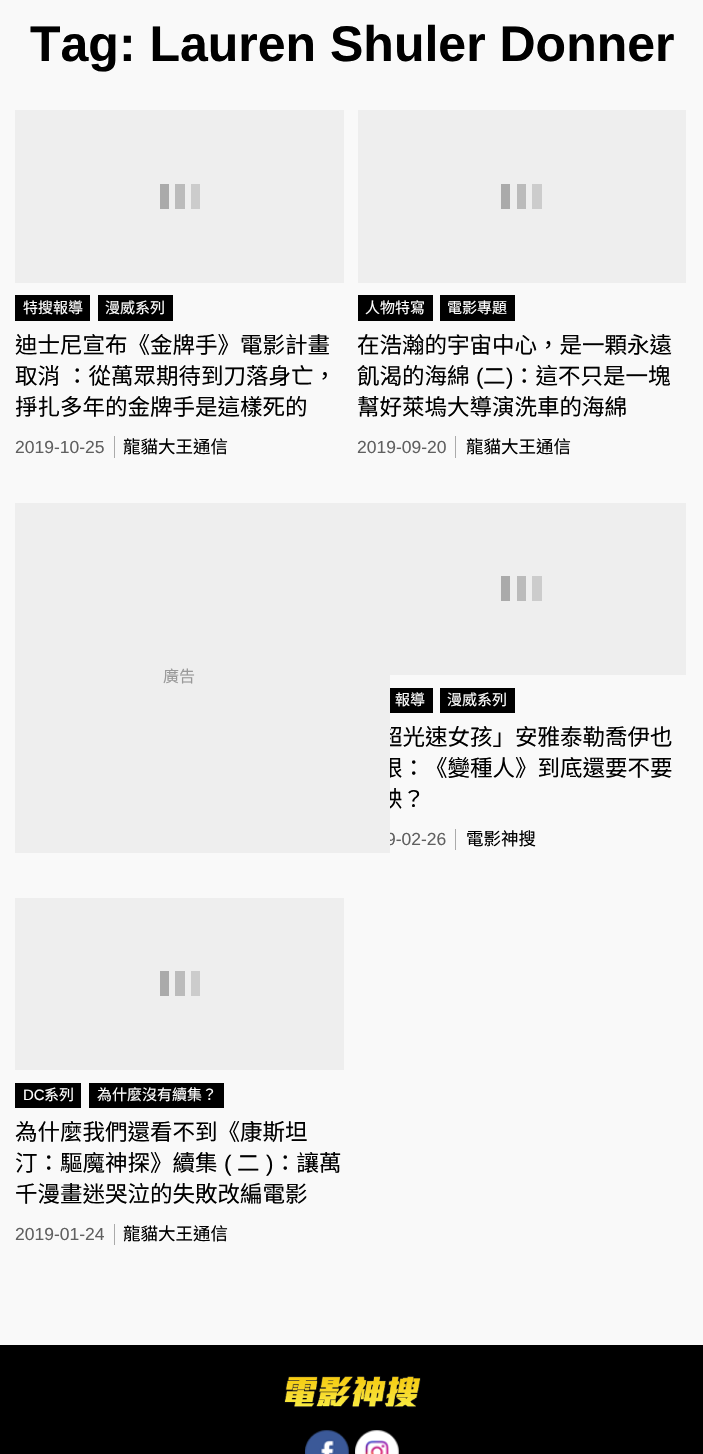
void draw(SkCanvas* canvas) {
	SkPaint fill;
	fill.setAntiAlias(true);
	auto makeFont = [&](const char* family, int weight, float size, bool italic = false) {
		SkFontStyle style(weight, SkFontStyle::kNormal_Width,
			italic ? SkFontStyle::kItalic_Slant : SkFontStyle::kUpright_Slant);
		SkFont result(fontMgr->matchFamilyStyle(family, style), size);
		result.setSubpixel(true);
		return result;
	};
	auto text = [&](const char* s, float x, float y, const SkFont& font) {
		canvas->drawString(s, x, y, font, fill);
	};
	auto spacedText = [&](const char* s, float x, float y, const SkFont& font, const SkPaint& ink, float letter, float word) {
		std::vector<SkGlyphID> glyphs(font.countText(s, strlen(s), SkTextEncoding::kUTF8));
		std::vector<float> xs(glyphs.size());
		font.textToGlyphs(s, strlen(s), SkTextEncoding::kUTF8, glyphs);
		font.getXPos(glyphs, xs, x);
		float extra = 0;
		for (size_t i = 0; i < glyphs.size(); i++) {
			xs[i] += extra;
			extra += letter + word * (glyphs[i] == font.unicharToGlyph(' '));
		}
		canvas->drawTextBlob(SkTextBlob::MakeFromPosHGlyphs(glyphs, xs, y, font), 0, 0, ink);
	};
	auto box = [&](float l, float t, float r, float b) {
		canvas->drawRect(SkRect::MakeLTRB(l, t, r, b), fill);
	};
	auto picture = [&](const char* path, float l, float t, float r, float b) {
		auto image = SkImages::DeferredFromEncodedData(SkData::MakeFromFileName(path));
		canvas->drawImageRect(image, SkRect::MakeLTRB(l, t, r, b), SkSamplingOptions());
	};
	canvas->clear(0xFFF9F9F9);
	fill.setColor(0xFFEEEEEE);
	box(15, 110, 344, 283);
	fill.setColor(0xFFAAAAAA);
	box(160, 184, 169, 209);
	fill.setColor(0xFFBBBBBB);
	box(175, 184, 185, 209);
	fill.setColor(0xFFCCCCCC);
	box(191, 184, 200, 209);
	fill.setColor(0xFF000000);
	box(15, 295, 90, 321);
	box(98, 295, 173, 321);
	fill.setColor(0xFFAAAAAA);
	box(114, 436, 115, 458);
	fill.setColor(0xFFEEEEEE);
	box(358, 110, 686, 283);
	fill.setColor(0xFFAAAAAA);
	box(501, 184, 510, 209);
	fill.setColor(0xFFBBBBBB);
	box(517, 184, 526, 209);
	fill.setColor(0xFFCCCCCC);
	box(532, 184, 542, 209);
	fill.setColor(0xFF000000);
	box(358, 295, 433, 321);
	box(440, 295, 515, 321);
	fill.setColor(0xFFAAAAAA);
	box(455, 436, 456, 458);
	fill.setColor(0xFFEEEEEE);
	box(390, 503, 686, 675);
	fill.setColor(0xFFAAAAAA);
	box(501, 576, 510, 601);
	fill.setColor(0xFFBBBBBB);
	box(517, 576, 526, 601);
	fill.setColor(0xFFCCCCCC);
	box(532, 576, 542, 601);
	fill.setColor(0xFF000000);
	box(390, 688, 433, 713);
	box(440, 688, 515, 713);
	fill.setColor(0xFFAAAAAA);
	box(455, 829, 456, 850);
	fill.setColor(0xFFEEEEEE);
	box(15, 898, 344, 1070);
	fill.setColor(0xFFAAAAAA);
	box(160, 971, 169, 996);
	fill.setColor(0xFFBBBBBB);
	box(175, 971, 185, 996);
	fill.setColor(0xFFCCCCCC);
	box(191, 971, 200, 996);
	fill.setColor(0xFF000000);
	box(15, 1083, 81, 1108);
	box(89, 1083, 224, 1108);
	fill.setColor(0xFFAAAAAA);
	box(114, 1224, 115, 1245);
	fill.setColor(0xFF000000);
	box(0, 1345, 703, 1454);
	picture("image0.png", 284, 1376, 421, 1408);
	picture("image1.png", 305, 1430, 349, 1454);
	picture("image2.png", 355, 1430, 399, 1454);
	auto font1 = makeFont("Liberation Sans", 700, 50);
	text("Tag: Lauren Shuler Donner", 30, 61, font1);
	auto font2 = makeFont("Noto Sans CJK TC", 400, 15);
	fill.setColor(0xFFFFFFFF);
	text("特搜報導", 23, 313, font2);
	text("漫威系列", 105, 313, font2);
	auto font3 = makeFont("Noto Sans CJK TC", 400, 22.5f);
	fill.setColor(0xFF000000);
	text("迪士尼宣布《金牌手》電影計畫", 15, 353, font3);
	spacedText("取消 ：從萬眾期待到刀落身亡，", 15, 384, font3, fill, 0, 1);
	text("掙扎多年的金牌手是這樣死的", 15, 415, font3);
	auto font4 = makeFont("Liberation Sans", 400, 17.5f);
	fill.setColor(0xFF606060);
	text("2019-10-25", 15, 453, font4);
	auto font5 = makeFont("Noto Sans CJK TC", 400, 17.5f);
	fill.setColor(0xFF000000);
	text("龍貓大王通信", 123, 453, font5);
	fill.setColor(0xFFFFFFFF);
	text("人物特寫", 365, 313, font2);
	text("電影專題", 447, 313, font2);
	fill.setColor(0xFF000000);
	text("在浩瀚的宇宙中心，是一顆永遠", 357, 353, font3);
	text("飢渴的海綿", 357, 384, font3);
	auto font6 = makeFont("Liberation Sans", 400, 22.5f);
	text("(", 476, 384, font6);
	text("二", 483, 384, font3);
	text(")", 506, 384, font6);
	text("：這不只是一塊", 513, 384, font3);
	text("幫好萊塢大導演洗車的海綿", 357, 415, font3);
	fill.setColor(0xFF606060);
	text("2019-09-20", 357, 453, font4);
	fill.setColor(0xFF000000);
	text("龍貓大王通信", 466, 453, font5);
	fill.setColor(0xFFFFFFFF);
	text("報導", 395, 705, font2);
	text("漫威系列", 447, 705, font2);
	fill.setColor(0xFF000000);
	text("超光速女孩」安雅泰勒喬伊也", 380, 745, font3);
	text("眼：《變種人》到底還要不要", 380, 776, font3);
	text("映？", 380, 807, font3);
	fill.setColor(0xFF606060);
	text("9-02-26", 386, 845, font4);
	fill.setColor(0xFFEEEEEE);
	box(15, 503, 390, 853);
	auto font7 = makeFont("Noto Sans CJK TC", 400, 16);
	fill.setColor(0xFF999999);
	text("廣告", 163, 682, font7);
	fill.setColor(0xFF000000);
	text("電影神搜", 466, 845, font5);
	auto font8 = makeFont("Liberation Sans", 400, 15);
	fill.setColor(0xFFFFFFFF);
	text("DC", 23, 1100, font8);
	text("系列", 44, 1100, font2);
	text("為什麼沒有續集？", 97, 1100, font2);
	fill.setColor(0xFF000000);
	text("為什麼我們還看不到《康斯坦", 15, 1140, font3);
	text("汀：驅魔神探》續集", 15, 1171, font3);
	text("(", 224, 1171, font6);
	text("二", 237, 1171, font3);
	text(")", 266, 1171, font6);
	text("：讓萬", 274, 1171, font3);
	text("千漫畫迷哭泣的失敗改編電影", 15, 1202, font3);
	fill.setColor(0xFF606060);
	text("2019-01-24", 15, 1240, font4);
	fill.setColor(0xFF000000);
	text("龍貓大王通信", 123, 1240, font5);
}
